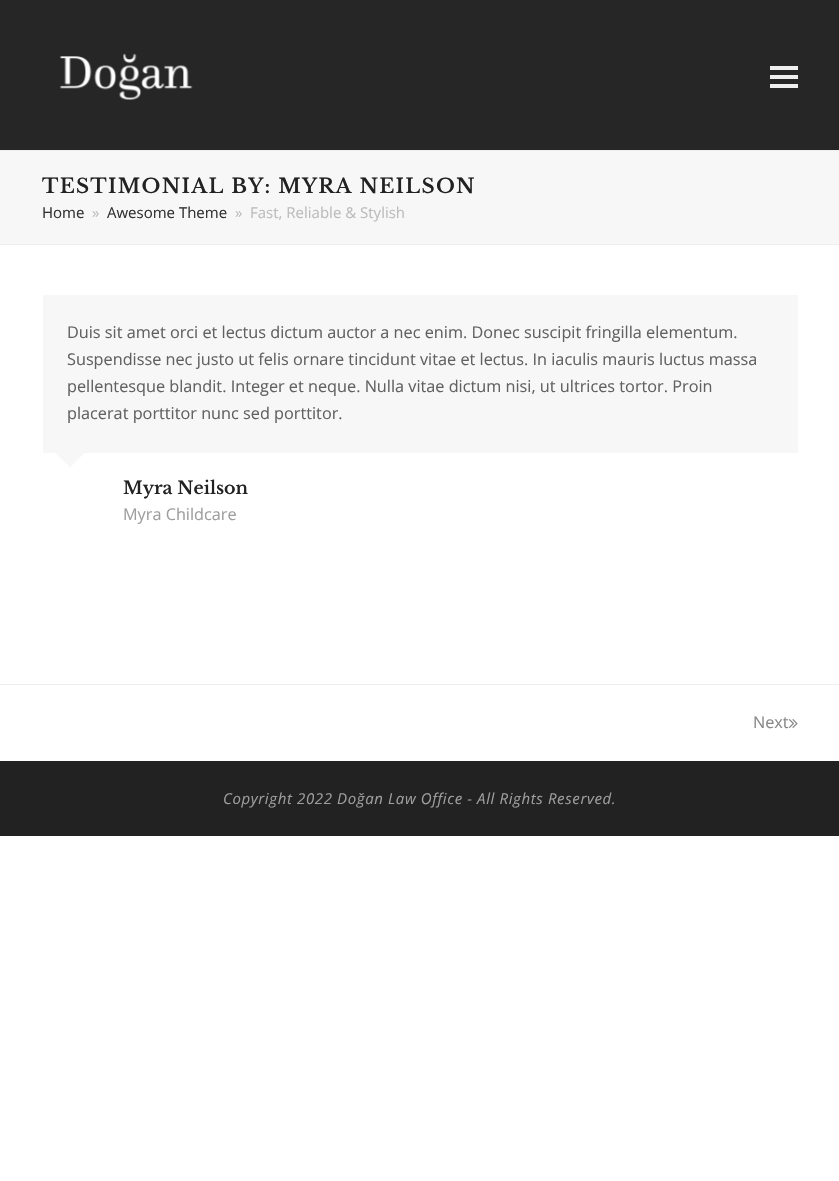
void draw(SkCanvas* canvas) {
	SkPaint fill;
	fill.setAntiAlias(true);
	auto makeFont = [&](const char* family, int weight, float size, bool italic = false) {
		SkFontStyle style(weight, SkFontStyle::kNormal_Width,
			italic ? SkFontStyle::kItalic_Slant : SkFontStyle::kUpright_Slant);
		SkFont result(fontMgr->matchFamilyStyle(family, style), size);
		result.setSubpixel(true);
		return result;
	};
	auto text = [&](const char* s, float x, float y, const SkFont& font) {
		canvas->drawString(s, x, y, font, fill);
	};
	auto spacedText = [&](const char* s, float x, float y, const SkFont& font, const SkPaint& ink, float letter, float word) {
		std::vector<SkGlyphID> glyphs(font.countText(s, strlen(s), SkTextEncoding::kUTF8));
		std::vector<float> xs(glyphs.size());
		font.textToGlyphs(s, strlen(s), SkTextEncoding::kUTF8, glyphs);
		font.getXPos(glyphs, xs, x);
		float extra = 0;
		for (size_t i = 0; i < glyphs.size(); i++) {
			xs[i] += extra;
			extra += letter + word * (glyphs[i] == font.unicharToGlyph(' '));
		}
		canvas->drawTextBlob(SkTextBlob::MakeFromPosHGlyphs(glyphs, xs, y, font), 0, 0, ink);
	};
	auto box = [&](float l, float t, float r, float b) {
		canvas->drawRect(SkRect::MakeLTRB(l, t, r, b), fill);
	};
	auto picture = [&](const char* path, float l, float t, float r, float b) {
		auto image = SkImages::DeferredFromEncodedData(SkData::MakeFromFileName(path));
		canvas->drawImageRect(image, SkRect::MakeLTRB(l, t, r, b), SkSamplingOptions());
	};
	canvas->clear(0xFFFFFFFF);
	fill.setColor(0xFF262626);
	box(0, 0, 839, 150);
	picture("image0.png", 60, 53, 193, 100);
	fill.setColor(0xFFEEEEEE);
	box(770, 75, 798, 79);
	box(770, 66, 798, 70);
	box(770, 84, 798, 88);
	fill.setColor(0xFFF7F7F7);
	box(0, 151, 839, 244);
	fill.setColor(0xFFEEEEEE);
	box(0, 150, 839, 151);
	box(0, 244, 839, 245);
	fill.setColor(0xFFF7F7F7);
	box(43, 295, 798, 453);
	canvas->drawPath(SkPathBuilder().moveTo(55, 452.5f).lineTo(85, 452.5f).lineTo(70, 467.5f).close().detach(), fill);
	fill.setColor(0xFFEEEEEE);
	box(0, 684, 839, 685);
	picture("image1.png", 789, 719, 798, 728);
	fill.setColor(0xFF222222);
	box(0, 761, 839, 836);
	auto font1 = makeFont("Libre Baskerville", 600, 20);
	spacedText("TESTIMONIAL BY: MYRA NEILSON", 42, 193, font1, fill, 1.25f, 0);
	auto font2 = makeFont("Open Sans", 400, 15);
	fill.setColor(0xFF333333);
	text("Home", 42, 218, font2);
	fill.setColor(0xFFBCBCBC);
	text("»", 92, 218, font2);
	fill.setColor(0xFF333333);
	text("Awesome Theme", 107, 218, font2);
	fill.setColor(0xFFBCBCBC);
	text("»", 235, 218, font2);
	text("Fast, Reliable & Stylish", 250, 218, font2);
	auto font3 = makeFont("Open Sans", 400, 16.25f);
	fill.setColor(0xFF616161);
	text("Duis sit amet orci et lectus dictum auctor a nec enim. Donec suscipit fringilla elementum.", 67, 338, font3);
	text("Suspendisse nec justo ut felis ornare tincidunt vitae et lectus. In iaculis mauris luctus massa", 67, 365, font3);
	text("pellentesque blandit. Integer et neque. Nulla vitae dictum nisi, ut ultrices tortor. Proin", 67, 392, font3);
	text("placerat porttitor nunc sed porttitor.", 67, 419, font3);
	auto font4 = makeFont("Libre Baskerville", 600, 17.5f);
	fill.setColor(0xFF222222);
	text("Myra Neilson", 123, 494, font4);
	fill.setColor(0xFF9E9E9E);
	text("Myra Childcare", 123, 520, font3);
	fill.setColor(0xFF888888);
	text("Next", 753, 728, font3);
	auto font5 = makeFont("Open Sans", 400, 15, true);
	fill.setColor(0xFF9E9E9E);
	spacedText("Copyright 2022 Doğan Law Office - All Rights Reserved.", 223, 804, font5, fill, 0.62f, 0);
}
